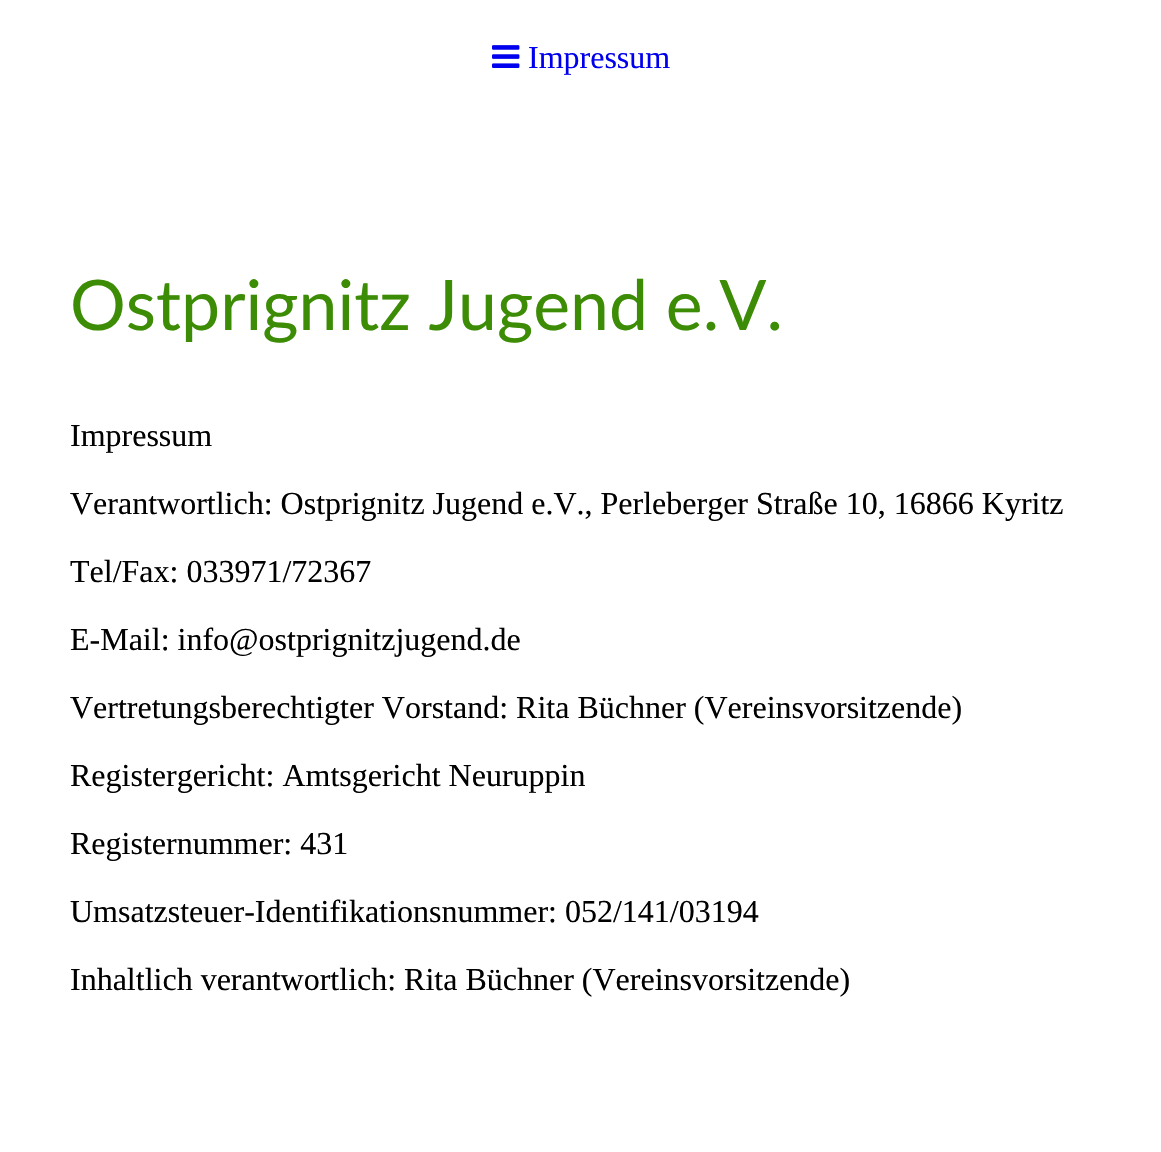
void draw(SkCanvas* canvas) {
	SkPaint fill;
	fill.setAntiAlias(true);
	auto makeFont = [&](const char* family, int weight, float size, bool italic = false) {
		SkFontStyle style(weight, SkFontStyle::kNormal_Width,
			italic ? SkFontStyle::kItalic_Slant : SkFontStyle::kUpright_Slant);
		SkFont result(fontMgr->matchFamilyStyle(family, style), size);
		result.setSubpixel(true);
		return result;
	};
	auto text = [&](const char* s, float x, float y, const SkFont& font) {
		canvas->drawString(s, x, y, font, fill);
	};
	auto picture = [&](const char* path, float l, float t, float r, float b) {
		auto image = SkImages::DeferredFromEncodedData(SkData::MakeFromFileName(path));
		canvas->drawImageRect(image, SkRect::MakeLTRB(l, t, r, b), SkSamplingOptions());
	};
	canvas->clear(0xFFFFFFFF);
	picture("image0.png", 492, 45, 520, 68);
	auto font1 = makeFont("Liberation Serif", 400, 32);
	fill.setColor(0xFF0000EE);
	text("Impressum", 528, 68, font1);
	auto font2 = makeFont("Lato", 400, 69.75f);
	fill.setColor(0xFF3C8C05);
	text("Ostprignitz Jugend e.V.", 70, 330, font2);
	fill.setColor(0xFF000000);
	text("Impressum", 70, 446, font1);
	text("Verantwortlich: Ostprignitz Jugend e.V., Perleberger Straße 10, 16866 Kyritz", 70, 514, font1);
	text("Tel/Fax: 033971/72367", 70, 582, font1);
	text("E-Mail: info@ostprignitzjugend.de", 70, 650, font1);
	text("Vertretungsberechtigter Vorstand: Rita Büchner (Vereinsvorsitzende)", 70, 718, font1);
	text("Registergericht: Amtsgericht Neuruppin", 70, 786, font1);
	text("Registernummer: 431", 70, 854, font1);
	text("Umsatzsteuer-Identifikationsnummer: 052/141/03194", 70, 922, font1);
	text("Inhaltlich verantwortlich: Rita Büchner (Vereinsvorsitzende)", 70, 990, font1);
}
